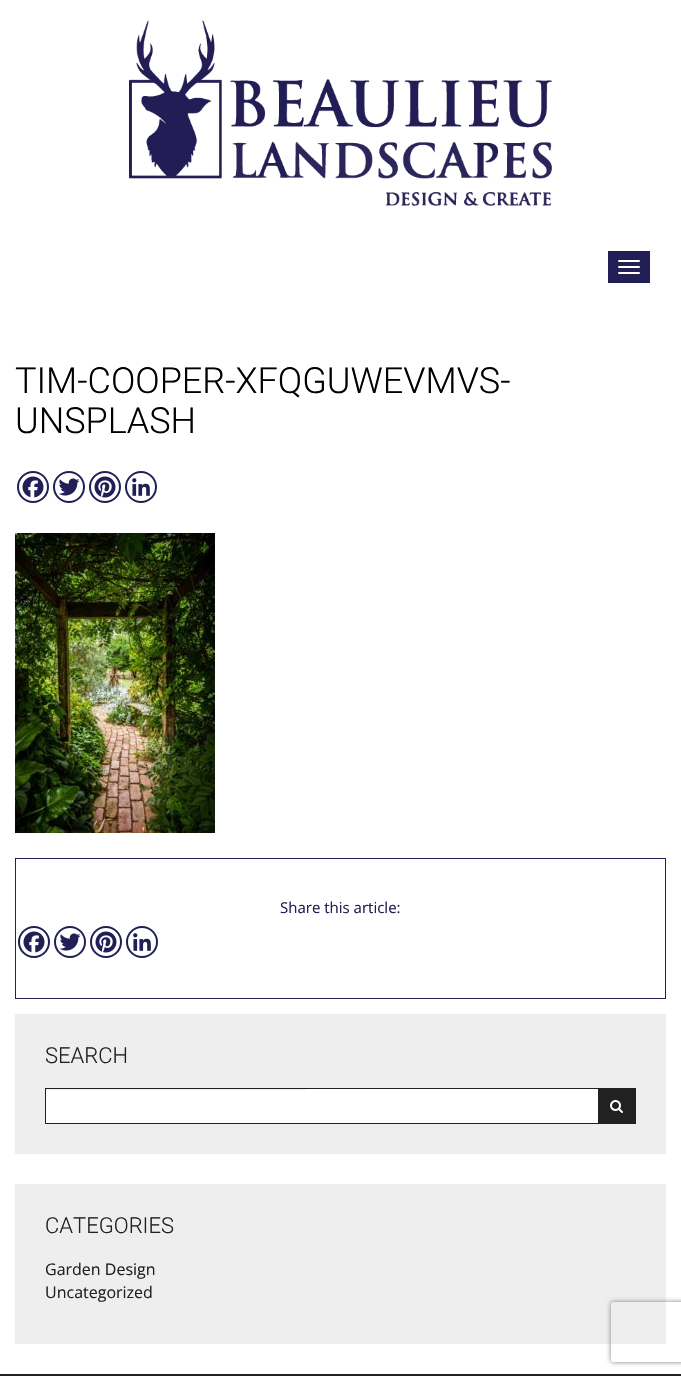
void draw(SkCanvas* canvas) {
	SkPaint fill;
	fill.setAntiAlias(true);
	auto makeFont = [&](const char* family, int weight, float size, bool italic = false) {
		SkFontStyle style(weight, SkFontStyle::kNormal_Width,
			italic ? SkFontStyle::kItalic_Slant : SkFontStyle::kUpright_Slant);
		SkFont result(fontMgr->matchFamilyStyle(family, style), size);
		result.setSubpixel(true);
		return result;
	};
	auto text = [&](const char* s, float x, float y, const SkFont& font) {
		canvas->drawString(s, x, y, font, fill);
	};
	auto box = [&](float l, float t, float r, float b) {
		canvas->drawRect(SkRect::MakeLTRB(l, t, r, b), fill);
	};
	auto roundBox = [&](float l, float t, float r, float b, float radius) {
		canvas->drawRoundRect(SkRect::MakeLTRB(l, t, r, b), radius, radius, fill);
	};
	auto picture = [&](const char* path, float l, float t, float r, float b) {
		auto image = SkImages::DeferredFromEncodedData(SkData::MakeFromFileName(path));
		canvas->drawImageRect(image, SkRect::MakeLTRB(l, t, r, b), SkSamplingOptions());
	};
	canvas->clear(0xFFFFFFFF);
	picture("image0.png", 129, 20, 552, 206);
	fill.setColor(0xFF211F55);
	box(608, 251, 650, 283);
	fill.setColor(0xFFFFFFFF);
	roundBox(618, 260, 640, 262, 1);
	roundBox(618, 266, 640, 268, 1);
	roundBox(618, 272, 640, 274, 1);
	fill.setStyle(SkPaint::kStroke_Style);
	fill.setStrokeWidth(2);
	fill.setColor(0xFF211F55);
	canvas->drawCircle(33, 487, 15, fill);
	picture("image1.png", 22, 476, 44, 498);
	canvas->drawCircle(69, 487, 15, fill);
	picture("image2.png", 58, 478, 80, 496);
	canvas->drawCircle(105, 487, 15, fill);
	picture("image3.png", 94, 476, 116, 498);
	canvas->drawCircle(141, 487, 15, fill);
	picture("image4.png", 132, 478, 150, 496);
	picture("image5.png", 15, 533, 215, 833);
	fill.setStrokeWidth(1);
	canvas->drawRect(SkRect::MakeLTRB(15.5f, 858.5f, 665.5f, 998.5f), fill);
	fill.setStrokeWidth(2);
	canvas->drawCircle(34, 942, 15, fill);
	picture("image1.png", 23, 931, 45, 953);
	canvas->drawCircle(70, 942, 15, fill);
	picture("image2.png", 59, 933, 81, 951);
	canvas->drawCircle(106, 942, 15, fill);
	picture("image3.png", 95, 931, 117, 953);
	canvas->drawCircle(142, 942, 15, fill);
	picture("image4.png", 133, 933, 151, 951);
	fill.setStyle(SkPaint::kFill_Style);
	fill.setColor(0xFFEEEEEE);
	box(15, 1014, 666, 1154);
	fill.setColor(0xFFFFFFFF);
	box(46, 1089, 598, 1123);
	fill.setStyle(SkPaint::kStroke_Style);
	fill.setStrokeWidth(1);
	fill.setColor(0xFF212121);
	canvas->drawRect(SkRect::MakeLTRB(45.5f, 1088.5f, 635.5f, 1123.5f), fill);
	fill.setStyle(SkPaint::kFill_Style);
	fill.setColor(0xFFECECEC);
	box(46, 1089, 306, 1090);
	fill.setColor(0xFF212121);
	box(598, 1089, 635, 1123);
	picture("image6.png", 610, 1100, 623, 1113);
	fill.setColor(0xFFEEEEEE);
	box(15, 1184, 666, 1344);
	canvas->save();
	canvas->clipPath(SkPathBuilder(SkPathFillType::kEvenOdd).moveTo(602, 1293).lineTo(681, 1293).lineTo(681, 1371).lineTo(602, 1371).close().moveTo(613, 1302).lineTo(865, 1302).cubicTo(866, 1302, 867, 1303, 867, 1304).lineTo(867, 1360).cubicTo(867, 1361, 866, 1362, 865, 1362).lineTo(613, 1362).cubicTo(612, 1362, 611, 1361, 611, 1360).lineTo(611, 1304).cubicTo(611, 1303, 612, 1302, 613, 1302).close().detach(), true);
	fill.setColor(0xFF808080);
	fill.setMaskFilter(SkMaskFilter::MakeBlur(kNormal_SkBlurStyle, 2.5f));
	canvas->drawRoundRect(SkRect::MakeLTRB(611, 1302, 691, 1362), 2, 2, fill);
	fill.setMaskFilter(nullptr);
	canvas->restore();
	fill.setColor(0xFF212121);
	box(0, 1374, 681, 1376);
	auto font1 = makeFont("Roboto", 300, 36);
	fill.setColor(0xFF000000);
	text("TIM-COOPER-XFQGUWEVMVS-", 15, 393, font1);
	text("UNSPLASH", 15, 433, font1);
	auto font2 = makeFont("Open Sans", 400, 15);
	fill.setColor(0xFF211F55);
	text("Share this article:", 280, 913, font2);
	auto font3 = makeFont("Roboto", 300, 22);
	fill.setColor(0xFF212121);
	text("SEARCH", 45, 1063, font3);
	text("CATEGORIES", 45, 1233, font3);
	auto font4 = makeFont("Open Sans", 400, 16);
	text("Garden Design", 45, 1275, font4);
	text("Uncategorized", 45, 1298, font4);
}
